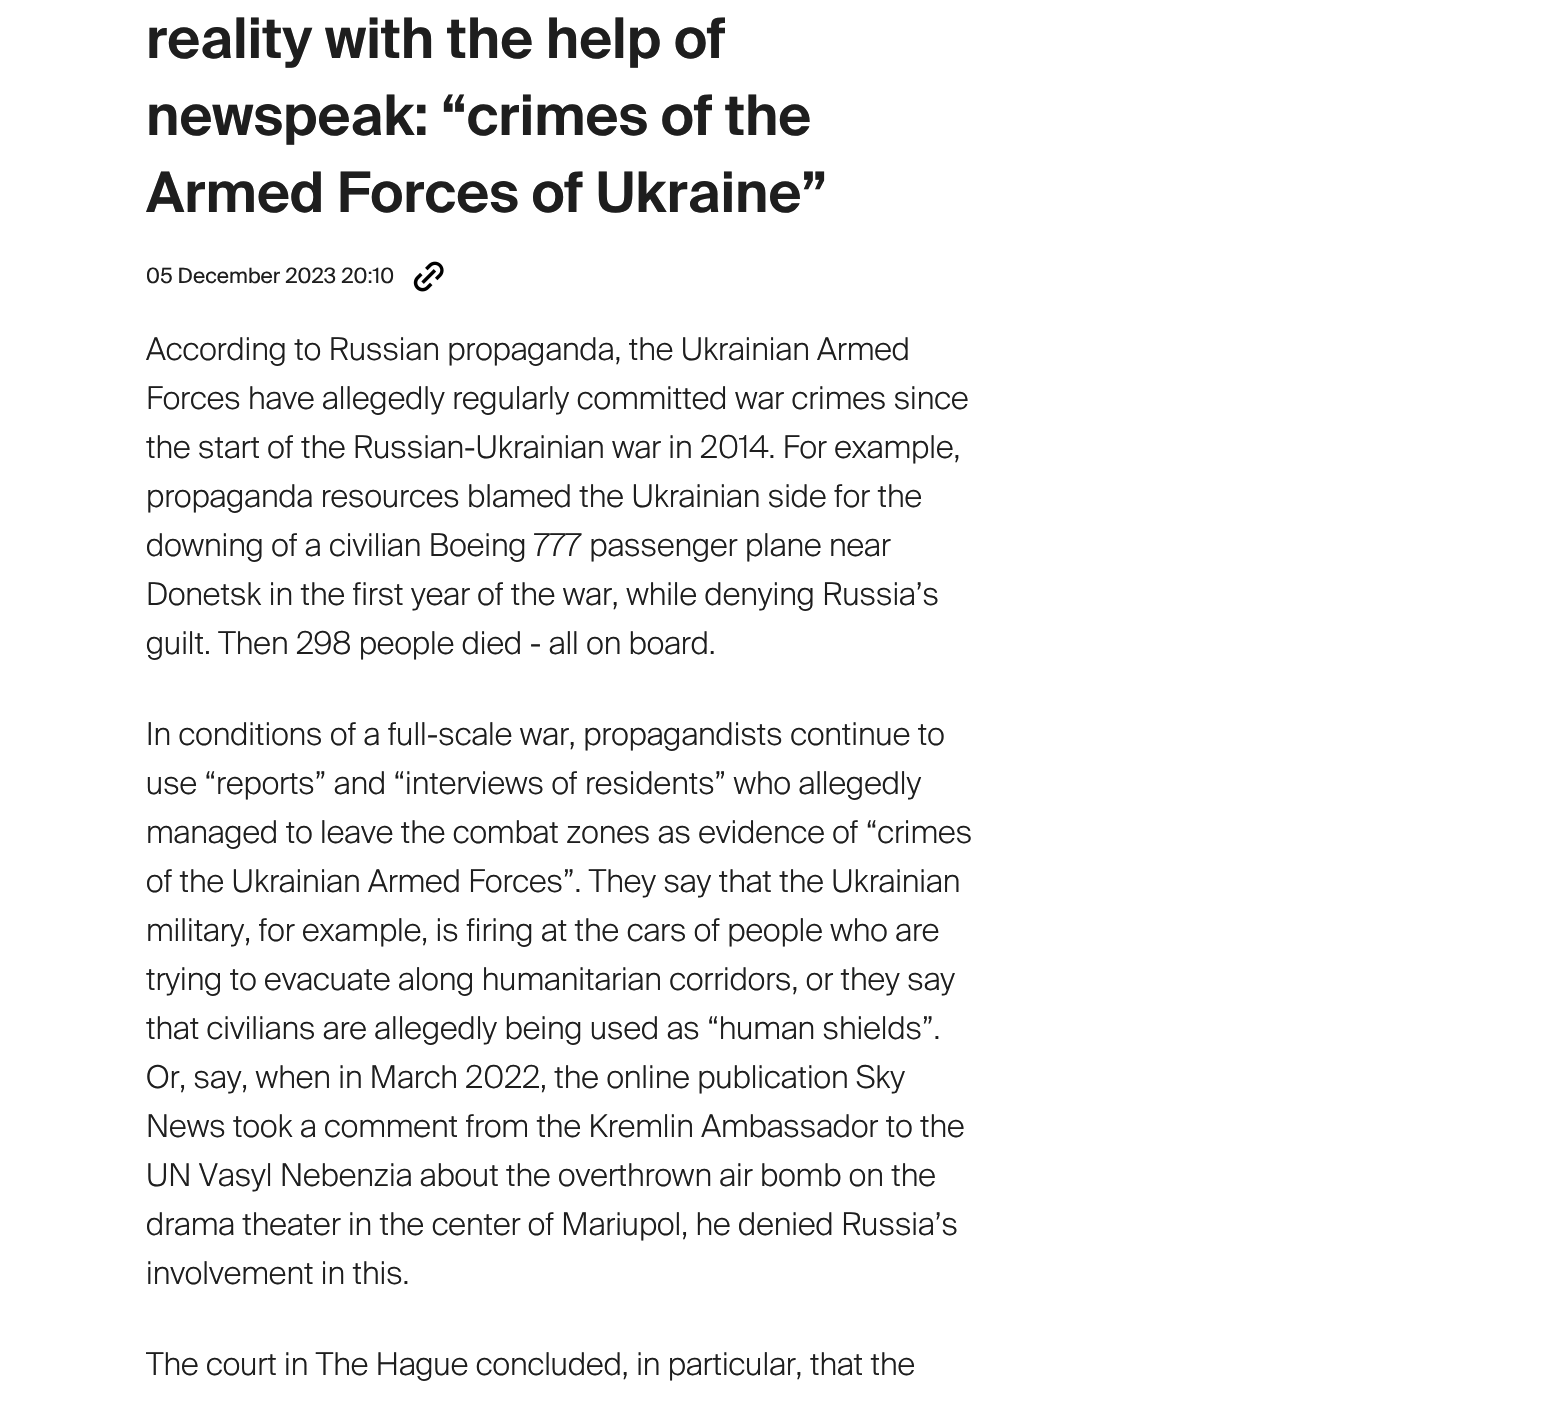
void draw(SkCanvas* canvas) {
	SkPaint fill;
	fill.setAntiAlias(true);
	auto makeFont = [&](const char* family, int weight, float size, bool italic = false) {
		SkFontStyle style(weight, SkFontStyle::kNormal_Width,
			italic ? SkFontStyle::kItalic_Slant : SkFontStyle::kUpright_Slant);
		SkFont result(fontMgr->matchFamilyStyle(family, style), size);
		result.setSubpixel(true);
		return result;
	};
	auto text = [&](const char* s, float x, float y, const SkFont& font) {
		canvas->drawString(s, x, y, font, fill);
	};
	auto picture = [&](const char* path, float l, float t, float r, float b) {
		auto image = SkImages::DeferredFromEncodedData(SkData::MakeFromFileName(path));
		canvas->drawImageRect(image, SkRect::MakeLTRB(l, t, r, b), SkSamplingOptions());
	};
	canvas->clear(0xFFFFFFFF);
	picture("image0.png", 413, 261, 444, 292);
	auto font1 = makeFont("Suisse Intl", 600, 56);
	fill.setColor(0xFF1E1E1E);
	text("reality with the help of", 146, 58, font1);
	text("newspeak: “crimes of the", 146, 135, font1);
	text("Armed Forces of Ukraine”", 146, 212, font1);
	auto font2 = makeFont("Suisse Intl", 400, 21);
	text("05 December 2023 20:10", 146, 283, font2);
	auto font3 = makeFont("Suisse Intl", 300, 31.5f);
	text("According to Russian propaganda, the Ukrainian Armed", 146, 360, font3);
	text("Forces have allegedly regularly committed war crimes since", 146, 409, font3);
	text("the start of the Russian-Ukrainian war in 2014. For example,", 146, 458, font3);
	text("propaganda resources blamed the Ukrainian side for the", 146, 507, font3);
	text("downing of a civilian Boeing 777 passenger plane near", 146, 556, font3);
	text("Donetsk in the first year of the war, while denying Russia’s", 146, 605, font3);
	text("guilt. Then 298 people died - all on board.", 146, 654, font3);
	text("In conditions of a full-scale war, propagandists continue to", 146, 745, font3);
	text("use “reports” and “interviews of residents” who allegedly", 146, 794, font3);
	text("managed to leave the combat zones as evidence of “crimes", 146, 843, font3);
	text("of the Ukrainian Armed Forces”. They say that the Ukrainian", 146, 892, font3);
	text("military, for example, is firing at the cars of people who are", 146, 941, font3);
	text("trying to evacuate along humanitarian corridors, or they say", 146, 990, font3);
	text("that civilians are allegedly being used as “human shields”.", 146, 1039, font3);
	text("Or, say, when in March 2022, the online publication Sky", 146, 1088, font3);
	text("News took a comment from the Kremlin Ambassador to the", 146, 1137, font3);
	text("UN Vasyl Nebenzia about the overthrown air bomb on the", 146, 1186, font3);
	text("drama theater in the center of Mariupol, he denied Russia’s", 146, 1235, font3);
	text("involvement in this.", 146, 1284, font3);
	text("The court in The Hague concluded, in particular, that the", 146, 1375, font3);
}
